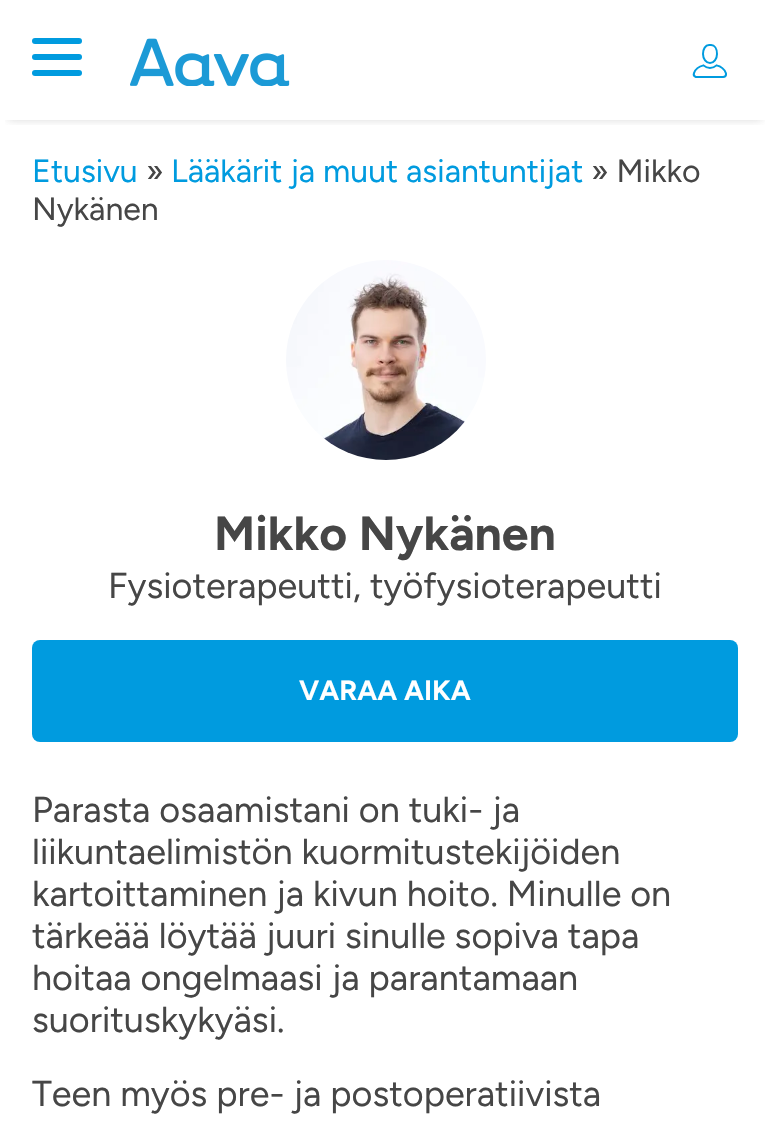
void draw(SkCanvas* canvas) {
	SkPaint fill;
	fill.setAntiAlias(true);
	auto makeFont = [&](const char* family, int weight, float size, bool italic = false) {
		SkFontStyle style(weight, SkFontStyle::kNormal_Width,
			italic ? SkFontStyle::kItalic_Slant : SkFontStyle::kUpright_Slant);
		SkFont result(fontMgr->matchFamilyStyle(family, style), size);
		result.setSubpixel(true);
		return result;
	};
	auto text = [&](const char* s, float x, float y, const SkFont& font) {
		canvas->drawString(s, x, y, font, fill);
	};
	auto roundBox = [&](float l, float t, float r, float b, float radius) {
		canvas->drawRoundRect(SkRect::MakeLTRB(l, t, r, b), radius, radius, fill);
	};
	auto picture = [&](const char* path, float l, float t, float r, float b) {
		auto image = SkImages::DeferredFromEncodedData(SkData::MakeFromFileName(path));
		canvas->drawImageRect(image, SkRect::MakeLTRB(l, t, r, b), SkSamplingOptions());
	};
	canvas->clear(0xFFFFFFFF);
	canvas->save();
	canvas->clipRect(SkRect::MakeLTRB(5, 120, 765, 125));
	fill.setColor(0x33464646);
	fill.setMaskFilter(SkMaskFilter::MakeBlur(kNormal_SkBlurStyle, 4));
	canvas->drawRect(SkRect::MakeLTRB(8, 16, 762, 120), fill);
	fill.setMaskFilter(nullptr);
	canvas->restore();
	fill.setColor(0xFF009BDF);
	roundBox(32, 38, 82, 44, 3);
	roundBox(32, 54, 82, 60, 3);
	roundBox(32, 70, 82, 76, 3);
	picture("image0.png", 130, 38, 290, 86);
	picture("image1.png", 692, 44, 727, 78);
	picture("image2.png", 286, 260, 486, 460);
	roundBox(32, 640, 738, 742, 8);
	auto font1 = makeFont("Figtree", 400, 32);
	text("Etusivu", 32, 182, font1);
	fill.setColor(0xFF464646);
	text("»", 146, 182, font1);
	fill.setColor(0xFF009BDF);
	text("Lääkärit ja muut asiantuntijat", 171, 182, font1);
	fill.setColor(0xFF464646);
	text("» Mikko", 591, 182, font1);
	text("Nykänen", 32, 220, font1);
	auto font2 = makeFont("Figtree", 700, 48);
	text("Mikko Nykänen", 214, 550, font2);
	auto font3 = makeFont("Figtree", 400, 36);
	text("Fysioterapeutti, työfysioterapeutti", 108, 598, font3);
	auto font4 = makeFont("Figtree", 700, 28);
	fill.setColor(0xFFFFFFFF);
	text("VARAA AIKA", 299, 700, font4);
	fill.setColor(0xFF464646);
	text("Parasta osaamistani on tuki- ja", 32, 822, font3);
	text("liikuntaelimistön kuormitustekijöiden", 32, 864, font3);
	text("kartoittaminen ja kivun hoito. Minulle on", 32, 906, font3);
	text("tärkeää löytää juuri sinulle sopiva tapa", 32, 948, font3);
	text("hoitaa ongelmaasi ja parantamaan", 32, 990, font3);
	text("suorituskykyäsi.", 32, 1032, font3);
	text("Teen myös pre- ja postoperatiivista", 32, 1106, font3);
}
